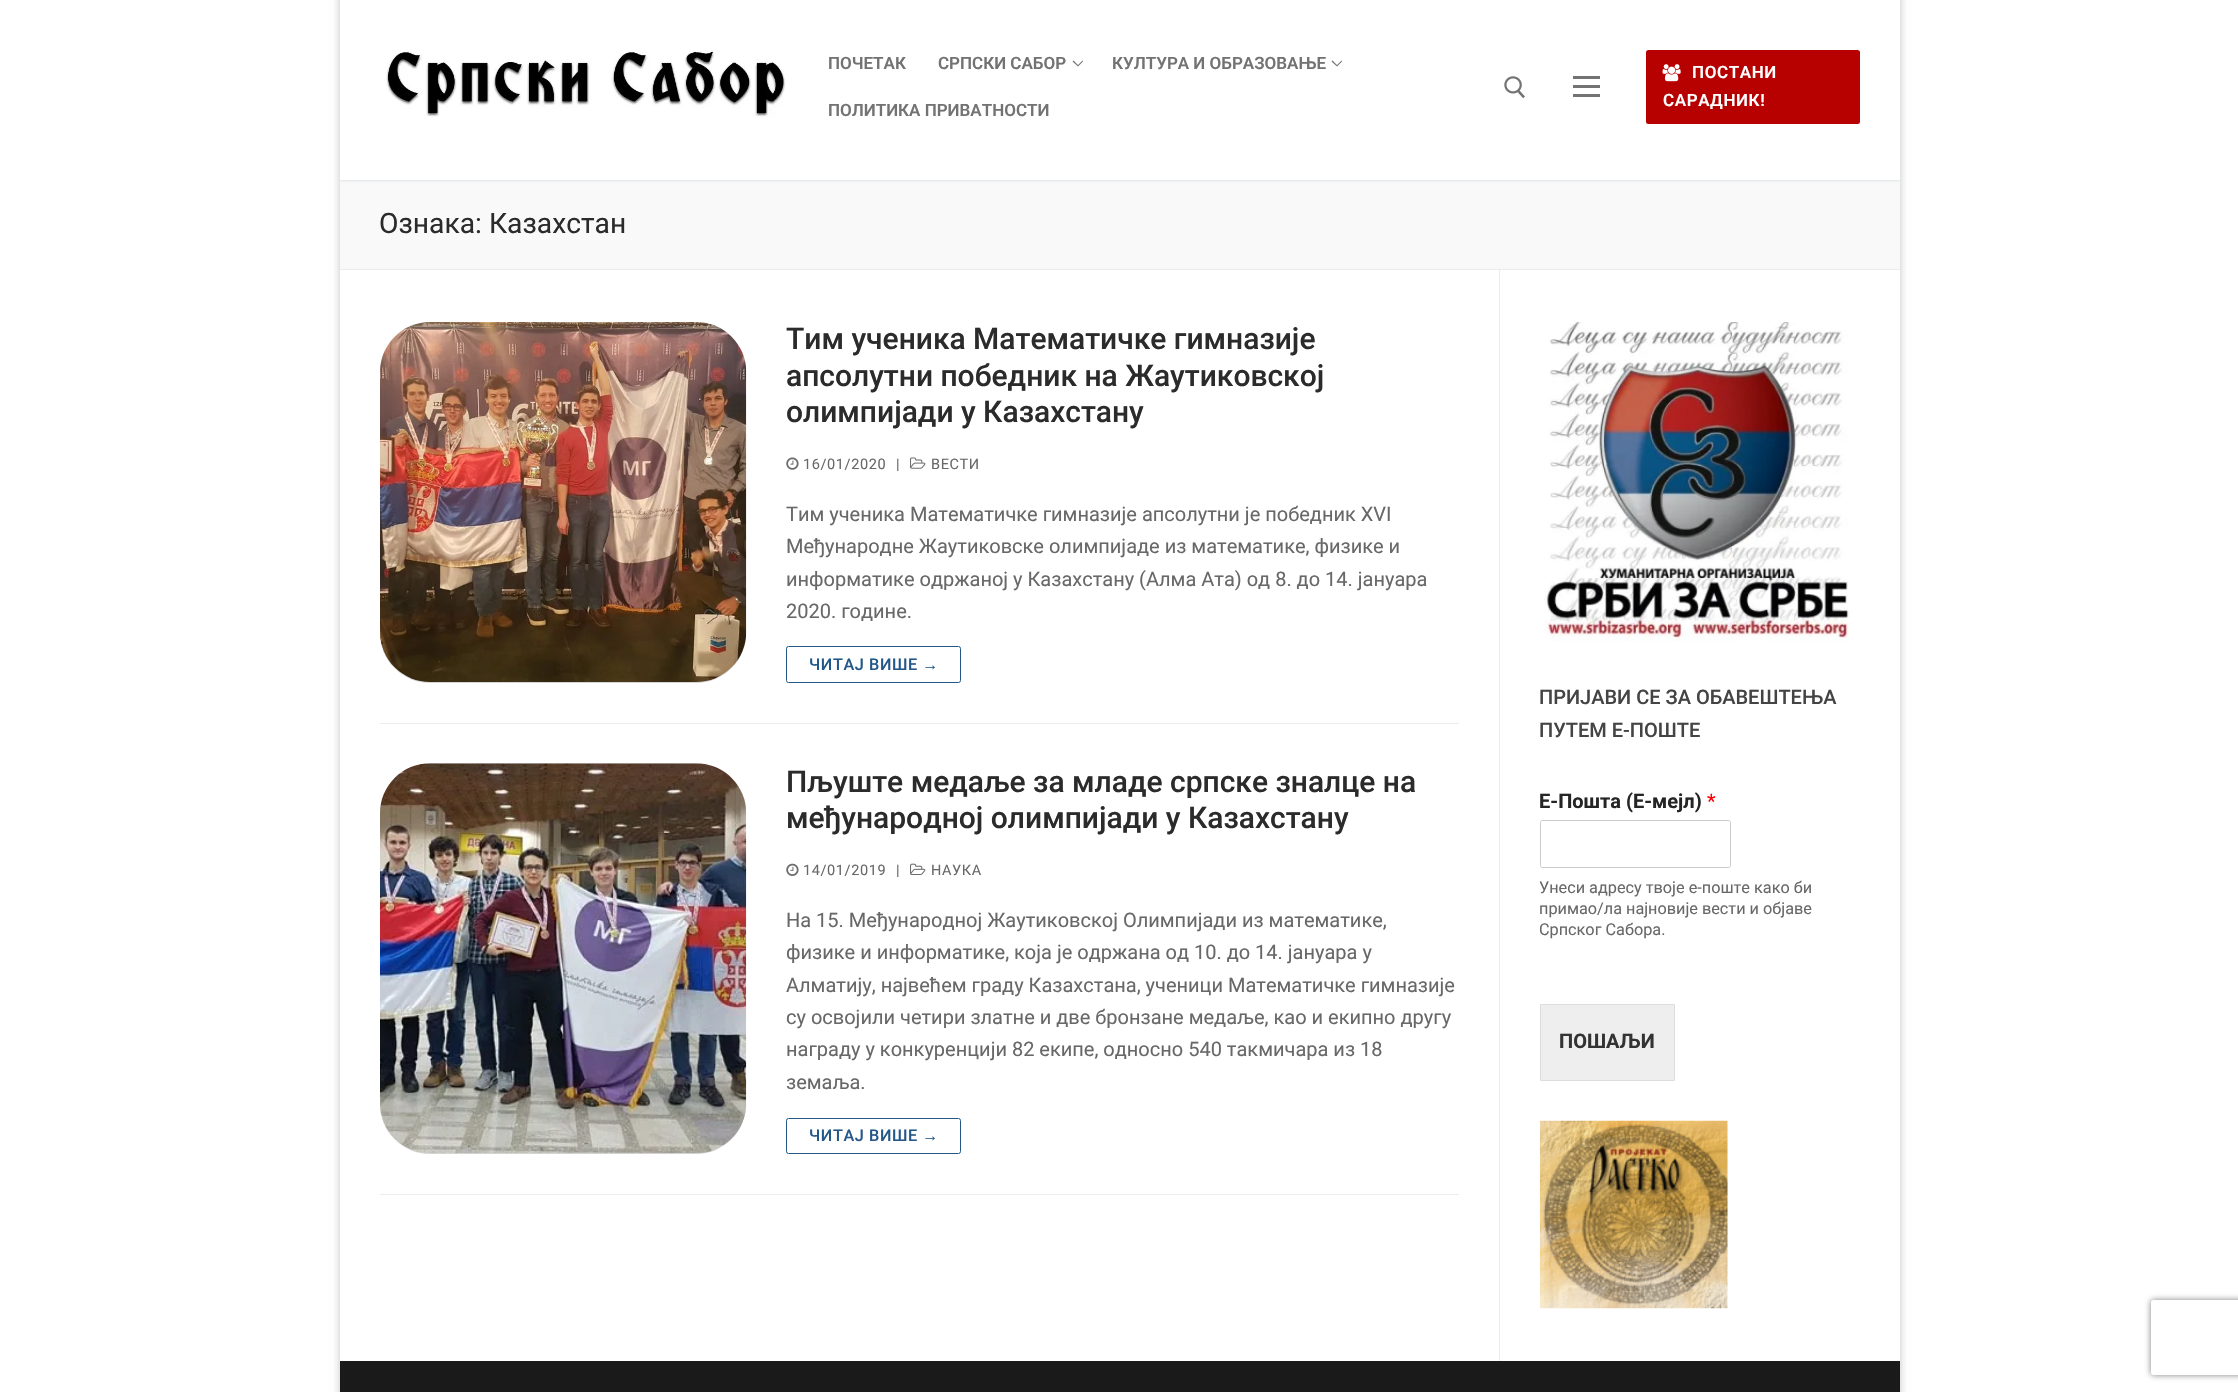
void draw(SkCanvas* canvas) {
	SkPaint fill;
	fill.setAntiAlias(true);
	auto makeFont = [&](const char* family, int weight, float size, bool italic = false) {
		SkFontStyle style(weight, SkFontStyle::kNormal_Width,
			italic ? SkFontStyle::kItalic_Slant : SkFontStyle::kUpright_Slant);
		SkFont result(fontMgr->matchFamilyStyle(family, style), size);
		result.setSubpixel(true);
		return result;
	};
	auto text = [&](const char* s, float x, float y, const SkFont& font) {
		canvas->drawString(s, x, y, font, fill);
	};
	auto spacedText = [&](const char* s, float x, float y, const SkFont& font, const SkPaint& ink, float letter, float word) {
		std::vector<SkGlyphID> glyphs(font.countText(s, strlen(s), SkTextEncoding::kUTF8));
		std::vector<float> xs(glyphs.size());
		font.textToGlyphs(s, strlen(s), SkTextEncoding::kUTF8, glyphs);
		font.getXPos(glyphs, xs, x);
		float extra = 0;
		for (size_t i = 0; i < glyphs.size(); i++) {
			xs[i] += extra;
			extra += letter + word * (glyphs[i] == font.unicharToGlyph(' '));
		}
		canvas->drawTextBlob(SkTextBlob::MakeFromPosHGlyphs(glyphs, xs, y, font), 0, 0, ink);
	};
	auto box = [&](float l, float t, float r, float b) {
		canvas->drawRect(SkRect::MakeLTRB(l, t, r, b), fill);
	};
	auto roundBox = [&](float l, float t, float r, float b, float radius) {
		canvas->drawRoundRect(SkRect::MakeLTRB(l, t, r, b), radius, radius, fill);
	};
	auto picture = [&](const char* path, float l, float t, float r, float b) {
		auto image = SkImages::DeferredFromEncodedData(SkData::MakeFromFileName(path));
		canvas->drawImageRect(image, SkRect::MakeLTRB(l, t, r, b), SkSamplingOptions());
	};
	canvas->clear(0xFFFFFFFF);
	canvas->save();
	canvas->clipPath(SkPathBuilder(SkPathFillType::kEvenOdd).moveTo(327, 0).lineTo(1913, 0).lineTo(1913, 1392).lineTo(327, 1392).close().moveTo(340, -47).lineTo(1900, -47).lineTo(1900, 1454).lineTo(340, 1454).close().detach(), true);
	fill.setColor(0x3B000000);
	fill.setMaskFilter(SkMaskFilter::MakeBlur(kNormal_SkBlurStyle, 4));
	canvas->drawRect(SkRect::MakeLTRB(340, -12, 1900, 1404), fill);
	fill.setMaskFilter(nullptr);
	canvas->restore();
	fill.setColor(0xFFF9F9F9);
	box(340, 180, 1900, 269);
	canvas->save();
	canvas->clipPath(SkPathBuilder(SkPathFillType::kEvenOdd).moveTo(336, 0).lineTo(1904, 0).lineTo(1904, 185).lineTo(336, 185).close().moveTo(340, -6).lineTo(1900, -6).lineTo(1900, 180).lineTo(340, 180).close().detach(), true);
	fill.setColor(0xFFE1E5EA);
	fill.setMaskFilter(SkMaskFilter::MakeBlur(kNormal_SkBlurStyle, 1));
	canvas->drawRect(SkRect::MakeLTRB(340, -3, 1900, 181), fill);
	fill.setMaskFilter(nullptr);
	canvas->restore();
	picture("image0.png", 386, 51, 786, 117);
	fill.setColor(0xFF737373);
	canvas->drawPath(SkPathBuilder().moveTo(1078, 66.5f).lineTo(1072.5f, 61.5f).lineTo(1073.5f, 60.5f).lineTo(1078, 65).close().moveTo(1083, 61.5f).lineTo(1078, 66.5f).lineTo(1078, 65).lineTo(1082.5f, 60.5f).close().detach(), fill);
	canvas->drawPath(SkPathBuilder().moveTo(1337, 66.5f).lineTo(1331.5f, 61.5f).lineTo(1332.5f, 60.5f).lineTo(1337, 65).close().moveTo(1342, 61.5f).lineTo(1337, 66.5f).lineTo(1337, 65).lineTo(1341.5f, 60.5f).close().detach(), fill);
	picture("image1.png", 1504, 76, 1525, 99);
	box(1573, 85, 1600, 88);
	box(1573, 76, 1600, 79);
	box(1573, 94, 1600, 97);
	fill.setColor(0xFFB70000);
	roundBox(1646, 50, 1860, 124, 2.5f);
	picture("image2.png", 1662, 64, 1681, 82);
	fill.setColor(0xFFEAECEE);
	box(340, 269, 1900, 270);
	box(1499, 270, 1500, 1361);
	box(380, 723, 1459, 724);
	fill.setColor(0xFFD5D5D5);
	roundBox(380, 323, 746, 683, 50);
	picture("image3.png", 380, 322, 747, 682);
	picture("image4.png", 786, 457, 799, 470);
	picture("image5.png", 910, 457, 926, 469);
	fill.setStyle(SkPaint::kStroke_Style);
	fill.setStrokeWidth(1);
	fill.setColor(0xFF235787);
	canvas->drawRoundRect(SkRect::MakeLTRB(786.5f, 646.5f, 960.5f, 682.5f), 2, 2, fill);
	fill.setStyle(SkPaint::kFill_Style);
	fill.setColor(0xFFEAECEE);
	box(380, 1194, 1459, 1195);
	fill.setColor(0xFFD5D5D5);
	roundBox(380, 764, 746, 1154, 50);
	picture("image6.png", 380, 763, 747, 1154);
	picture("image7.png", 786, 863, 799, 876);
	picture("image8.png", 910, 863, 926, 875);
	fill.setStyle(SkPaint::kStroke_Style);
	fill.setColor(0xFF235787);
	canvas->drawRoundRect(SkRect::MakeLTRB(786.5f, 1118.5f, 960.5f, 1153.5f), 2, 2, fill);
	picture("image9.png", 1544, 322, 1852, 642);
	fill.setColor(0xFFCCCCCC);
	canvas->drawRoundRect(SkRect::MakeLTRB(1540.5f, 820.5f, 1730.5f, 867.5f), 2, 2, fill);
	fill.setStyle(SkPaint::kFill_Style);
	fill.setColor(0xFFEEEEEE);
	canvas->drawRoundRect(SkRect::MakeLTRB(1540.5f, 1004.5f, 1674.5f, 1080.5f), 0.5f, 0.5f, fill);
	fill.setStyle(SkPaint::kStroke_Style);
	fill.setColor(0xFFDDDDDD);
	canvas->drawRoundRect(SkRect::MakeLTRB(1540.5f, 1004.5f, 1674.5f, 1080.5f), 0.5f, 0.5f, fill);
	picture("image10.png", 1540, 1120, 1728, 1309);
	fill.setStyle(SkPaint::kFill_Style);
	fill.setColor(0xFF1A1A1A);
	box(340, 1361, 1900, 1392);
	canvas->save();
	canvas->clipPath(SkPathBuilder(SkPathFillType::kEvenOdd).moveTo(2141, 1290).lineTo(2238, 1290).lineTo(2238, 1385).lineTo(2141, 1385).close().moveTo(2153.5f, 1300).lineTo(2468.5f, 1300).cubicTo(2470, 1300, 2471, 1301, 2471, 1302.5f).lineTo(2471, 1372.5f).cubicTo(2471, 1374, 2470, 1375, 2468.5f, 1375).lineTo(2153.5f, 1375).cubicTo(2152, 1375, 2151, 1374, 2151, 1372.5f).lineTo(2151, 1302.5f).cubicTo(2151, 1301, 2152, 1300, 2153.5f, 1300).close().detach(), true);
	fill.setColor(0xFF808080);
	fill.setMaskFilter(SkMaskFilter::MakeBlur(kNormal_SkBlurStyle, 3));
	canvas->drawRoundRect(SkRect::MakeLTRB(2151, 1300, 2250, 1375), 2.5f, 2.5f, fill);
	fill.setMaskFilter(nullptr);
	canvas->restore();
	auto font1 = makeFont("Roboto", 600, 17);
	fill.setColor(0xFF737373);
	text("ПОЧЕТАК", 828, 69, font1);
	text("СРПСКИ САБОР", 938, 69, font1);
	text("КУЛТУРА И ОБРАЗОВАЊЕ", 1112, 69, font1);
	text("ПОЛИТИКА ПРИВАТНОСТИ", 828, 116, font1);
	fill.setColor(0xFFFFFFFF);
	spacedText("ПОСТАНИ", 1692, 78, font1, fill, 0.6f, 0);
	spacedText("САРАДНИК!", 1663, 106, font1, fill, 0.6f, 0);
	auto font2 = makeFont("Roboto", 400, 28.25f);
	fill.setColor(0xFF2B2B2B);
	text("Ознака: Казахстан", 379, 233, font2);
	auto font3 = makeFont("Roboto", 500, 30);
	text("Тим ученика Математичке гимназије", 786, 349, font3);
	text("апсолутни победник на Жаутиковској", 786, 386, font3);
	text("олимпијади у Казахстану", 786, 422, font3);
	auto font4 = makeFont("Roboto", 400, 14.5f);
	fill.setColor(0xFF686868);
	spacedText("16/01/2020", 803, 469, font4, fill, 0.6f, 0);
	spacedText("|", 896, 469, font4, fill, 0.6f, 0);
	spacedText("ВЕСТИ", 931, 469, font4, fill, 0.6f, 0);
	auto font5 = makeFont("Roboto", 400, 20);
	text("Тим ученика Математичке гимназије апсолутни је победник XVI", 786, 521, font5);
	text("Међународне Жаутиковске олимпијаде из математике, физике и", 786, 553, font5);
	text("информатике одржаној у Казахстану (Aлма Ата) од 8. до 14. јануара", 786, 586, font5);
	text("2020. године.", 786, 618, font5);
	auto font6 = makeFont("Roboto", 500, 16.25f);
	fill.setColor(0xFF235787);
	spacedText("ЧИТАЈ ВИШЕ", 809, 670, font6, fill, 0.6f, 0);
	auto font7 = makeFont("Liberation Sans", 400, 16.25f);
	spacedText("→", 922, 670, font7, fill, 0.6f, 0);
	fill.setColor(0xFF2B2B2B);
	text("Пљуште медаље за младе српске зналце на", 786, 792, font3);
	text("међународној олимпијади у Казахстану", 786, 828, font3);
	fill.setColor(0xFF686868);
	spacedText("14/01/2019", 803, 875, font4, fill, 0.6f, 0);
	spacedText("|", 896, 875, font4, fill, 0.6f, 0);
	spacedText("НАУКА", 931, 875, font4, fill, 0.6f, 0);
	text("На 15. Међународној Жаутиковској Олимпијади из математике,", 786, 927, font5);
	text("физике и информатике, која је одржана од 10. до 14. јануара у", 786, 959, font5);
	text("Алматију, највећем граду Казахстана, ученици Математичке гимназије", 786, 992, font5);
	text("су освојили четири златне и две бронзане медаље, као и екипно другу", 786, 1024, font5);
	text("награду у конкуренцији 82 екипе, односно 540 такмичара из 18", 786, 1056, font5);
	text("земаља.", 786, 1089, font5);
	fill.setColor(0xFF235787);
	spacedText("ЧИТАЈ ВИШЕ", 809, 1141, font6, fill, 0.6f, 0);
	spacedText("→", 922, 1141, font7, fill, 0.6f, 0);
	auto font8 = makeFont("Roboto", 500, 20);
	fill.setColor(0xFF444444);
	text("ПРИЈАВИ СЕ ЗА ОБАВЕШТЕЊА", 1539, 704, font8);
	text("ПУТЕМ Е-ПОШТЕ", 1539, 737, font8);
	auto font9 = makeFont("Roboto", 700, 20);
	fill.setColor(0xFF252525);
	text("Е-Пошта (Е-мејл)", 1539, 808, font9);
	fill.setColor(0xFFFF0000);
	text("*", 1707, 808, font5);
	auto font10 = makeFont("Roboto", 400, 16.25f);
	fill.setColor(0xFF686868);
	text("Унеси адресу твоје е-поште како би", 1539, 893, font10);
	text("примао/ла најновије вести и објаве", 1539, 914, font10);
	text("Српског Сабора.", 1539, 935, font10);
	fill.setColor(0xFF333333);
	text("ПОШАЉИ", 1559, 1048, font9);
}
